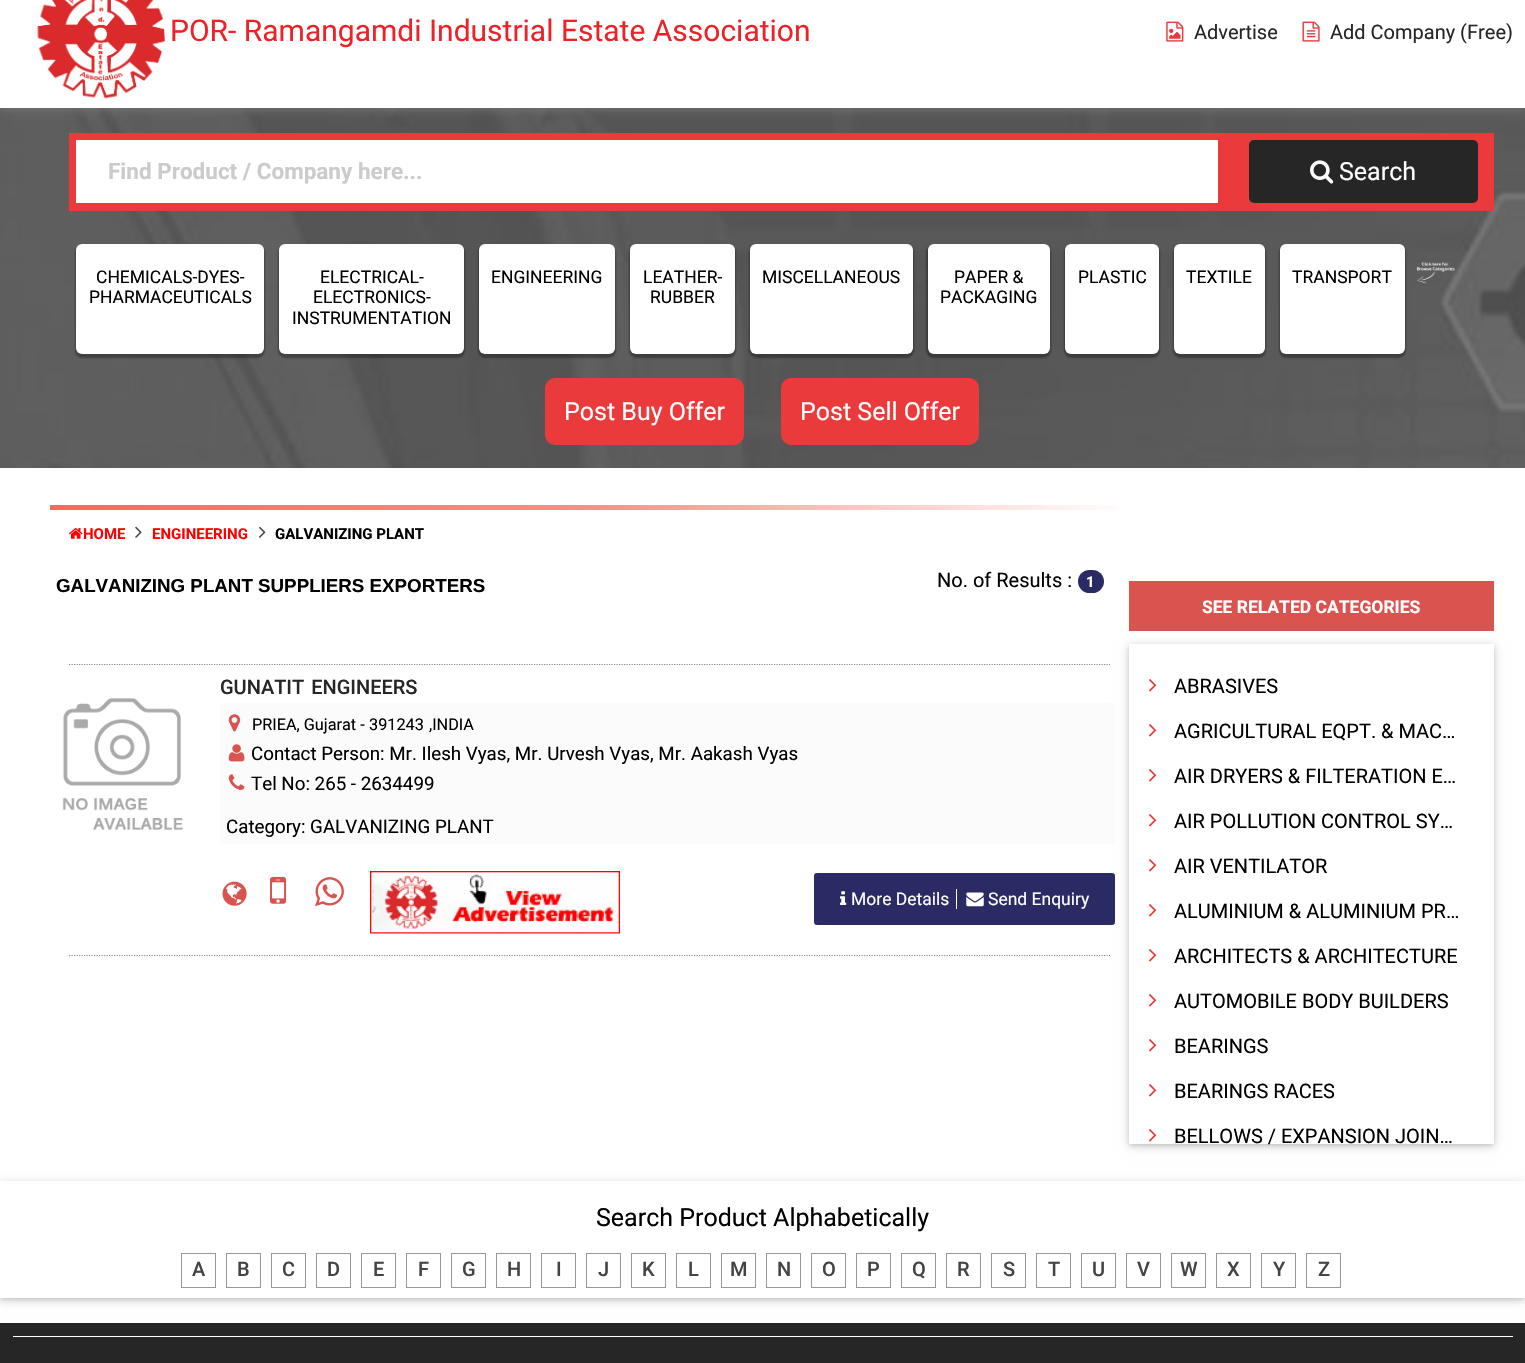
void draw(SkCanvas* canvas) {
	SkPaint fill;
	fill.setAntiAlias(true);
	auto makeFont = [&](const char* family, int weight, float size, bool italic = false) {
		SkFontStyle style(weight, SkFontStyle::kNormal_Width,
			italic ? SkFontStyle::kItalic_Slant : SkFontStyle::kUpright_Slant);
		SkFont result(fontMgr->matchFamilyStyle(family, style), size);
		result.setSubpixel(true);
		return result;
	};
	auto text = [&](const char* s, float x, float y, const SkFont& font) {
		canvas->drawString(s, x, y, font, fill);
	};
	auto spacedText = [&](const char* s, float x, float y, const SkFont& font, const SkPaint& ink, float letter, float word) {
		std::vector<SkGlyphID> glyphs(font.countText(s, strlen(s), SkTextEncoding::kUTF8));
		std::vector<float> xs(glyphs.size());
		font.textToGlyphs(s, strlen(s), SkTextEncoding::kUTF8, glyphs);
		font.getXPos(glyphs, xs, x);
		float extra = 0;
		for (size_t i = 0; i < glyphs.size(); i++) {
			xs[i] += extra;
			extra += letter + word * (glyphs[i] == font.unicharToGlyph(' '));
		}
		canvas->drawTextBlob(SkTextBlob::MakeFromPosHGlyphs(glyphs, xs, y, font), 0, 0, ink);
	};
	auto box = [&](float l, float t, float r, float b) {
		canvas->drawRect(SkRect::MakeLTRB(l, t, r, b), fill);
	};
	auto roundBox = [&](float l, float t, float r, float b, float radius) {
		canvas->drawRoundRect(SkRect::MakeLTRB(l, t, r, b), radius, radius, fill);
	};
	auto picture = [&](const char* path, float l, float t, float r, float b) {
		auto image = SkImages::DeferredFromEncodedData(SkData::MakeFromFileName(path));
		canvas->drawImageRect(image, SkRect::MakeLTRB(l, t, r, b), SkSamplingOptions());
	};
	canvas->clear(0xFFFFFFFF);
	picture("image3.png", 0, 108, 1525, 468);
	fill.setColor(0xFF7B7B7B);
	fill.setMaskFilter(SkMaskFilter::MakeBlur(kNormal_SkBlurStyle, 5.5f));
	canvas->drawRect(SkRect::MakeLTRB(0, -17, 1525, 108), fill);
	fill.setMaskFilter(nullptr);
	fill.setColor(0xFFFFFFFF);
	box(0, 0, 1525, 108);
	picture("image0.png", 37, 0, 165, 99);
	picture("image1.png", 1166, 21, 1184, 42);
	picture("image2.png", 1302, 21, 1320, 42);
	fill.setColor(0xFFEA3A3C);
	box(69, 133, 1494, 211);
	fill.setColor(0xFFFFFFFF);
	box(76, 140, 1218, 203);
	fill.setColor(0xFF262626);
	roundBox(1249, 140, 1478, 203, 5);
	picture("image4.png", 1310, 160, 1334, 184);
	fill.setColor(0x52000000);
	fill.setMaskFilter(SkMaskFilter::MakeBlur(kNormal_SkBlurStyle, 1));
	canvas->drawRoundRect(SkRect::MakeLTRB(75, 245, 265, 358), 8, 8, fill);
	fill.setMaskFilter(nullptr);
	fill.setColor(0xFFFFFFFF);
	roundBox(76, 244, 264, 354, 6);
	fill.setColor(0x52000000);
	fill.setMaskFilter(SkMaskFilter::MakeBlur(kNormal_SkBlurStyle, 1));
	canvas->drawRoundRect(SkRect::MakeLTRB(278, 245, 465, 358), 8, 8, fill);
	fill.setMaskFilter(nullptr);
	fill.setColor(0xFFFFFFFF);
	roundBox(279, 244, 464, 354, 6);
	fill.setColor(0x52000000);
	fill.setMaskFilter(SkMaskFilter::MakeBlur(kNormal_SkBlurStyle, 1));
	canvas->drawRoundRect(SkRect::MakeLTRB(478, 245, 616, 358), 8, 8, fill);
	fill.setMaskFilter(nullptr);
	fill.setColor(0xFFFFFFFF);
	roundBox(479, 244, 615, 354, 6);
	fill.setColor(0x52000000);
	fill.setMaskFilter(SkMaskFilter::MakeBlur(kNormal_SkBlurStyle, 1));
	canvas->drawRoundRect(SkRect::MakeLTRB(629, 245, 736, 358), 8, 8, fill);
	fill.setMaskFilter(nullptr);
	fill.setColor(0xFFFFFFFF);
	roundBox(630, 244, 735, 354, 6);
	fill.setColor(0x52000000);
	fill.setMaskFilter(SkMaskFilter::MakeBlur(kNormal_SkBlurStyle, 1));
	canvas->drawRoundRect(SkRect::MakeLTRB(749, 245, 914, 358), 8, 8, fill);
	fill.setMaskFilter(nullptr);
	fill.setColor(0xFFFFFFFF);
	roundBox(750, 244, 913, 354, 6);
	fill.setColor(0x52000000);
	fill.setMaskFilter(SkMaskFilter::MakeBlur(kNormal_SkBlurStyle, 1));
	canvas->drawRoundRect(SkRect::MakeLTRB(926, 245, 1051, 358), 8, 8, fill);
	fill.setMaskFilter(nullptr);
	fill.setColor(0xFFFFFFFF);
	roundBox(928, 244, 1050, 354, 6);
	fill.setColor(0x52000000);
	fill.setMaskFilter(SkMaskFilter::MakeBlur(kNormal_SkBlurStyle, 1));
	canvas->drawRoundRect(SkRect::MakeLTRB(1064, 245, 1160, 358), 8, 8, fill);
	fill.setMaskFilter(nullptr);
	fill.setColor(0xFFFFFFFF);
	roundBox(1065, 244, 1159, 354, 6);
	fill.setColor(0x52000000);
	fill.setMaskFilter(SkMaskFilter::MakeBlur(kNormal_SkBlurStyle, 1));
	canvas->drawRoundRect(SkRect::MakeLTRB(1173, 245, 1266, 358), 8, 8, fill);
	fill.setMaskFilter(nullptr);
	fill.setColor(0xFFFFFFFF);
	roundBox(1174, 244, 1265, 354, 6);
	fill.setColor(0x52000000);
	fill.setMaskFilter(SkMaskFilter::MakeBlur(kNormal_SkBlurStyle, 1));
	canvas->drawRoundRect(SkRect::MakeLTRB(1279, 245, 1406, 358), 8, 8, fill);
	fill.setMaskFilter(nullptr);
	fill.setColor(0xFFFFFFFF);
	roundBox(1280, 244, 1405, 354, 6);
	picture("image5.png", 1416, 262, 1455, 284);
	fill.setColor(0xFFEA3A3C);
	canvas->drawRoundRect(SkRect::MakeLTRB(546.5f, 379.5f, 742.5f, 443.5f), 8.5f, 8.5f, fill);
	fill.setStyle(SkPaint::kStroke_Style);
	fill.setStrokeWidth(3);
	canvas->drawRoundRect(SkRect::MakeLTRB(546.5f, 379.5f, 742.5f, 443.5f), 8.5f, 8.5f, fill);
	fill.setStyle(SkPaint::kFill_Style);
	canvas->drawRoundRect(SkRect::MakeLTRB(782.5f, 379.5f, 977.5f, 443.5f), 8.5f, 8.5f, fill);
	fill.setStyle(SkPaint::kStroke_Style);
	canvas->drawRoundRect(SkRect::MakeLTRB(782.5f, 379.5f, 977.5f, 443.5f), 8.5f, 8.5f, fill);
	fill.setStyle(SkPaint::kFill_Style);
	{
		const SkColor colors[] = {0xFFF6695E, 0xFFF88E86, 0xFFFFFFFF};
		const float stops[] = {0, 0.5f, 1};
		const SkPoint ends[] = {{50, 508}, {1129, 508}};
		fill.setShader(SkGradientShader::MakeLinear(ends, colors, stops, 3, SkTileMode::kClamp));
		fill.setAlpha(255);
	}
	box(50, 505, 1118, 510);
	picture("image6.png", 69, 528, 83, 539);
	picture("image7.png", 135, 526, 142, 538);
	picture("image8.png", 258, 526, 266, 538);
	fill.setShader(nullptr);
	fill.setColor(0xFF2A2B65);
	roundBox(1078, 570, 1104, 593, 11.5f);
	fill.setStyle(SkPaint::kStroke_Style);
	fill.setStrokeWidth(1.2f);
	fill.setColor(0xFF8C8B8B);
	fill.setPathEffect(SkDashPathEffect::Make({{1.25f, 1.25f}}, 0));
	canvas->drawPath(SkPathBuilder().moveTo(69, 664.5f).lineTo(1110, 664.5f).detach(), fill);
	fill.setPathEffect(nullptr);
	picture("image9.png", 62, 698, 183, 830);
	fill.setStyle(SkPaint::kFill_Style);
	fill.setColor(0xFFFCFBFB);
	box(220, 703, 1115, 844);
	picture("image10.png", 228, 714, 241, 732);
	picture("image11.png", 228, 744, 245, 762);
	picture("image12.png", 228, 774, 245, 790);
	picture("image13.png", 222, 881, 247, 906);
	picture("image14.png", 270, 876, 287, 904);
	picture("image15.png", 315, 877, 344, 907);
	picture("image16.png", 370, 871, 620, 934);
	fill.setColor(0xFF2A2B65);
	canvas->drawRoundRect(SkRect::MakeLTRB(814.5f, 873.5f, 1114.5f, 924.5f), 2, 2, fill);
	fill.setStyle(SkPaint::kStroke_Style);
	fill.setStrokeWidth(1);
	canvas->drawRoundRect(SkRect::MakeLTRB(814.5f, 873.5f, 1114.5f, 924.5f), 2, 2, fill);
	picture("image17.png", 840, 891, 847, 905);
	fill.setStyle(SkPaint::kFill_Style);
	fill.setColor(0xFFFFFFFF);
	box(956, 889, 957, 909);
	picture("image18.png", 966, 892, 984, 907);
	fill.setStyle(SkPaint::kStroke_Style);
	fill.setStrokeWidth(1.2f);
	fill.setColor(0xFF8C8B8B);
	fill.setPathEffect(SkDashPathEffect::Make({{1.25f, 1.25f}}, 0));
	canvas->drawPath(SkPathBuilder().moveTo(69, 955.5f).lineTo(1110, 955.5f).detach(), fill);
	fill.setPathEffect(nullptr);
	fill.setStyle(SkPaint::kFill_Style);
	fill.setColor(0x1F000000);
	fill.setMaskFilter(SkMaskFilter::MakeBlur(kNormal_SkBlurStyle, 6));
	canvas->drawRect(SkRect::MakeLTRB(1129, 646, 1494, 1146), fill);
	fill.setMaskFilter(nullptr);
	fill.setColor(0xFFD9534F);
	box(1129, 581, 1494, 631);
	fill.setColor(0x29000000);
	fill.setMaskFilter(SkMaskFilter::MakeBlur(kNormal_SkBlurStyle, 2.5f));
	canvas->drawRect(SkRect::MakeLTRB(1129, 646, 1494, 1146), fill);
	fill.setMaskFilter(nullptr);
	fill.setColor(0xFFFFFFFF);
	box(1129, 644, 1494, 1144);
	picture("image19.png", 1149, 679, 1157, 692);
	picture("image19.png", 1149, 724, 1157, 737);
	picture("image19.png", 1149, 769, 1157, 782);
	picture("image19.png", 1149, 814, 1157, 827);
	picture("image19.png", 1149, 859, 1157, 872);
	picture("image19.png", 1149, 904, 1157, 917);
	picture("image19.png", 1149, 949, 1157, 962);
	picture("image19.png", 1149, 994, 1157, 1007);
	picture("image19.png", 1149, 1039, 1157, 1052);
	picture("image19.png", 1149, 1084, 1157, 1097);
	picture("image19.png", 1149, 1129, 1157, 1142);
	canvas->save();
	canvas->clipPath(SkPathBuilder(SkPathFillType::kEvenOdd).moveTo(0, 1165).lineTo(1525, 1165).lineTo(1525, 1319).lineTo(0, 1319).close().moveTo(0, 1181).lineTo(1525, 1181).lineTo(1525, 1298).lineTo(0, 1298).close().detach(), true);
	fill.setColor(0x1F000000);
	fill.setMaskFilter(SkMaskFilter::MakeBlur(kNormal_SkBlurStyle, 6));
	canvas->drawRect(SkRect::MakeLTRB(0, 1184, 1525, 1300), fill);
	fill.setMaskFilter(nullptr);
	canvas->restore();
	canvas->save();
	canvas->clipPath(SkPathBuilder(SkPathFillType::kEvenOdd).moveTo(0, 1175).lineTo(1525, 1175).lineTo(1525, 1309).lineTo(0, 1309).close().moveTo(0, 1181).lineTo(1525, 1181).lineTo(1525, 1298).lineTo(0, 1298).close().detach(), true);
	fill.setColor(0x29000000);
	fill.setMaskFilter(SkMaskFilter::MakeBlur(kNormal_SkBlurStyle, 2.5f));
	canvas->drawRect(SkRect::MakeLTRB(0, 1184, 1525, 1300), fill);
	fill.setMaskFilter(nullptr);
	canvas->restore();
	fill.setStyle(SkPaint::kStroke_Style);
	fill.setStrokeWidth(1);
	fill.setColor(0xFF999999);
	canvas->drawRect(SkRect::MakeLTRB(181.5f, 1253.5f, 215.5f, 1287.5f), fill);
	canvas->drawRect(SkRect::MakeLTRB(226.5f, 1253.5f, 260.5f, 1287.5f), fill);
	canvas->drawRect(SkRect::MakeLTRB(271.5f, 1253.5f, 305.5f, 1287.5f), fill);
	canvas->drawRect(SkRect::MakeLTRB(316.5f, 1253.5f, 350.5f, 1287.5f), fill);
	canvas->drawRect(SkRect::MakeLTRB(361.5f, 1253.5f, 395.5f, 1287.5f), fill);
	canvas->drawRect(SkRect::MakeLTRB(406.5f, 1253.5f, 440.5f, 1287.5f), fill);
	canvas->drawRect(SkRect::MakeLTRB(451.5f, 1253.5f, 485.5f, 1287.5f), fill);
	canvas->drawRect(SkRect::MakeLTRB(496.5f, 1253.5f, 530.5f, 1287.5f), fill);
	canvas->drawRect(SkRect::MakeLTRB(541.5f, 1253.5f, 575.5f, 1287.5f), fill);
	canvas->drawRect(SkRect::MakeLTRB(586.5f, 1253.5f, 620.5f, 1287.5f), fill);
	canvas->drawRect(SkRect::MakeLTRB(631.5f, 1253.5f, 665.5f, 1287.5f), fill);
	canvas->drawRect(SkRect::MakeLTRB(676.5f, 1253.5f, 710.5f, 1287.5f), fill);
	canvas->drawRect(SkRect::MakeLTRB(721.5f, 1253.5f, 755.5f, 1287.5f), fill);
	canvas->drawRect(SkRect::MakeLTRB(766.5f, 1253.5f, 800.5f, 1287.5f), fill);
	canvas->drawRect(SkRect::MakeLTRB(811.5f, 1253.5f, 845.5f, 1287.5f), fill);
	canvas->drawRect(SkRect::MakeLTRB(856.5f, 1253.5f, 890.5f, 1287.5f), fill);
	canvas->drawRect(SkRect::MakeLTRB(901.5f, 1253.5f, 935.5f, 1287.5f), fill);
	canvas->drawRect(SkRect::MakeLTRB(946.5f, 1253.5f, 980.5f, 1287.5f), fill);
	canvas->drawRect(SkRect::MakeLTRB(991.5f, 1253.5f, 1025.5f, 1287.5f), fill);
	canvas->drawRect(SkRect::MakeLTRB(1036.5f, 1253.5f, 1070.5f, 1287.5f), fill);
	canvas->drawRect(SkRect::MakeLTRB(1081.5f, 1253.5f, 1115.5f, 1287.5f), fill);
	canvas->drawRect(SkRect::MakeLTRB(1126.5f, 1253.5f, 1160.5f, 1287.5f), fill);
	canvas->drawRect(SkRect::MakeLTRB(1171.5f, 1253.5f, 1205.5f, 1287.5f), fill);
	canvas->drawRect(SkRect::MakeLTRB(1216.5f, 1253.5f, 1250.5f, 1287.5f), fill);
	canvas->drawRect(SkRect::MakeLTRB(1261.5f, 1253.5f, 1295.5f, 1287.5f), fill);
	canvas->drawRect(SkRect::MakeLTRB(1306.5f, 1253.5f, 1340.5f, 1287.5f), fill);
	fill.setStyle(SkPaint::kFill_Style);
	fill.setColor(0xFF262626);
	box(0, 1323, 1525, 1363);
	fill.setColor(0xFFFFFFFF);
	box(13, 1336, 1513, 1337);
	auto font1 = makeFont("Roboto", 400, 30);
	fill.setColor(0xFFED2228);
	text("POR- Ramangamdi Industrial Estate Association", 170, 41, font1);
	auto font2 = makeFont("Roboto", 400, 20);
	fill.setColor(0xFF262626);
	text("Advertise", 1194, 39, font2);
	text("Add Company (Free)", 1330, 39, font2);
	auto font3 = makeFont("Roboto", 700, 22.5f);
	fill.setColor(0xFFCBCBCB);
	text("Find Product / Company here...", 108, 179, font3);
	auto font4 = makeFont("Roboto", 400, 25);
	fill.setColor(0xFFFFFFFF);
	text("Search", 1339, 180, font4);
	auto font5 = makeFont("Roboto", 400, 17.5f);
	fill.setColor(0xFF000000);
	text("CHEMICALS-DYES-", 96, 283, font5);
	text("PHARMACEUTICALS", 89, 303, font5);
	text("ELECTRICAL-", 320, 283, font5);
	text("ELECTRONICS-", 313, 303, font5);
	text("INSTRUMENTATION", 292, 324, font5);
	text("ENGINEERING", 491, 283, font5);
	text("LEATHER-", 643, 283, font5);
	text("RUBBER", 650, 303, font5);
	text("MISCELLANEOUS", 762, 283, font5);
	text("PAPER &", 954, 283, font5);
	text("PACKAGING", 940, 303, font5);
	text("PLASTIC", 1078, 283, font5);
	text("TEXTILE", 1186, 283, font5);
	text("TRANSPORT", 1292, 283, font5);
	fill.setColor(0xFFFFFFFF);
	text("Post Buy Offer", 564, 420, font4);
	text("Post Sell Offer", 800, 420, font4);
	auto font6 = makeFont("Roboto", 700, 15);
	fill.setColor(0xFFFF0000);
	text("HOME", 83, 539, font6);
	text("ENGINEERING", 152, 539, font6);
	fill.setColor(0xFF000000);
	text("GALVANIZING PLANT", 275, 539, font6);
	auto font7 = makeFont("Liberation Sans", 700, 18.75f);
	text("GALVANIZING PLANT SUPPLIERS EXPORTERS", 56, 592, font7);
	text("No. of Results :", 937, 587, font2);
	fill.setColor(0xFFFFFFFF);
	text("1", 1086, 587, font6);
	auto font8 = makeFont("Roboto", 500, 20);
	fill.setColor(0xFF262626);
	spacedText("GUNATIT ENGINEERS", 220, 694, font8, fill, 0, 2);
	auto font9 = makeFont("Roboto", 400, 16.25f);
	fill.setColor(0xFF000000);
	text("PRIEA, Gujarat -", 252, 730, font9);
	text("391243", 369, 730, font9);
	text(",INDIA", 429, 730, font9);
	auto font10 = makeFont("Roboto", 400, 18.75f);
	text("Contact Person: Mr. Ilesh Vyas, Mr. Urvesh Vyas, Mr. Aakash Vyas", 251, 760, font10);
	text("Tel No: 265 - 2634499", 251, 790, font10);
	text("Category: GALVANIZING PLANT", 226, 833, font10);
	fill.setColor(0xFFFFFFFF);
	text("More Details", 851, 905, font5);
	text("Send Enquiry", 988, 905, font5);
	auto font11 = makeFont("Roboto", 700, 17.5f);
	text("SEE RELATED CATEGORIES", 1202, 613, font11);
	fill.setColor(0xFF000000);
	text("ABRASIVES", 1174, 693, font2);
	text("AGRICULTURAL EQPT. & MAC…", 1174, 738, font2);
	text("AIR DRYERS & FILTERATION E…", 1174, 783, font2);
	text("AIR POLLUTION CONTROL SY…", 1174, 828, font2);
	text("AIR VENTILATOR", 1174, 873, font2);
	text("ALUMINIUM & ALUMINIUM PR…", 1174, 918, font2);
	text("ARCHITECTS & ARCHITECTURE", 1174, 963, font2);
	text("AUTOMOBILE BODY BUILDERS", 1174, 1008, font2);
	text("BEARINGS", 1174, 1053, font2);
	text("BEARINGS RACES", 1174, 1098, font2);
	text("BELLOWS / EXPANSION JOIN…", 1174, 1143, font2);
	text("Search Product Alphabetically", 596, 1226, font4);
	fill.setColor(0xFF444444);
	text("A", 192, 1276, font8);
	text("B", 237, 1276, font8);
	text("C", 282, 1276, font8);
	text("D", 327, 1276, font8);
	text("E", 373, 1276, font8);
	text("F", 418, 1276, font8);
	text("G", 462, 1276, font8);
	text("H", 507, 1276, font8);
	text("I", 556, 1276, font8);
	text("J", 598, 1276, font8);
	text("K", 642, 1276, font8);
	text("L", 688, 1276, font8);
	text("M", 730, 1276, font8);
	text("N", 777, 1276, font8);
	text("O", 822, 1276, font8);
	text("P", 867, 1276, font8);
	text("Q", 912, 1276, font8);
	text("R", 957, 1276, font8);
	text("S", 1003, 1276, font8);
	text("T", 1048, 1276, font8);
	text("U", 1092, 1276, font8);
	text("V", 1137, 1276, font8);
	text("W", 1180, 1276, font8);
	text("X", 1227, 1276, font8);
	text("Y", 1273, 1276, font8);
	text("Z", 1318, 1276, font8);
}
